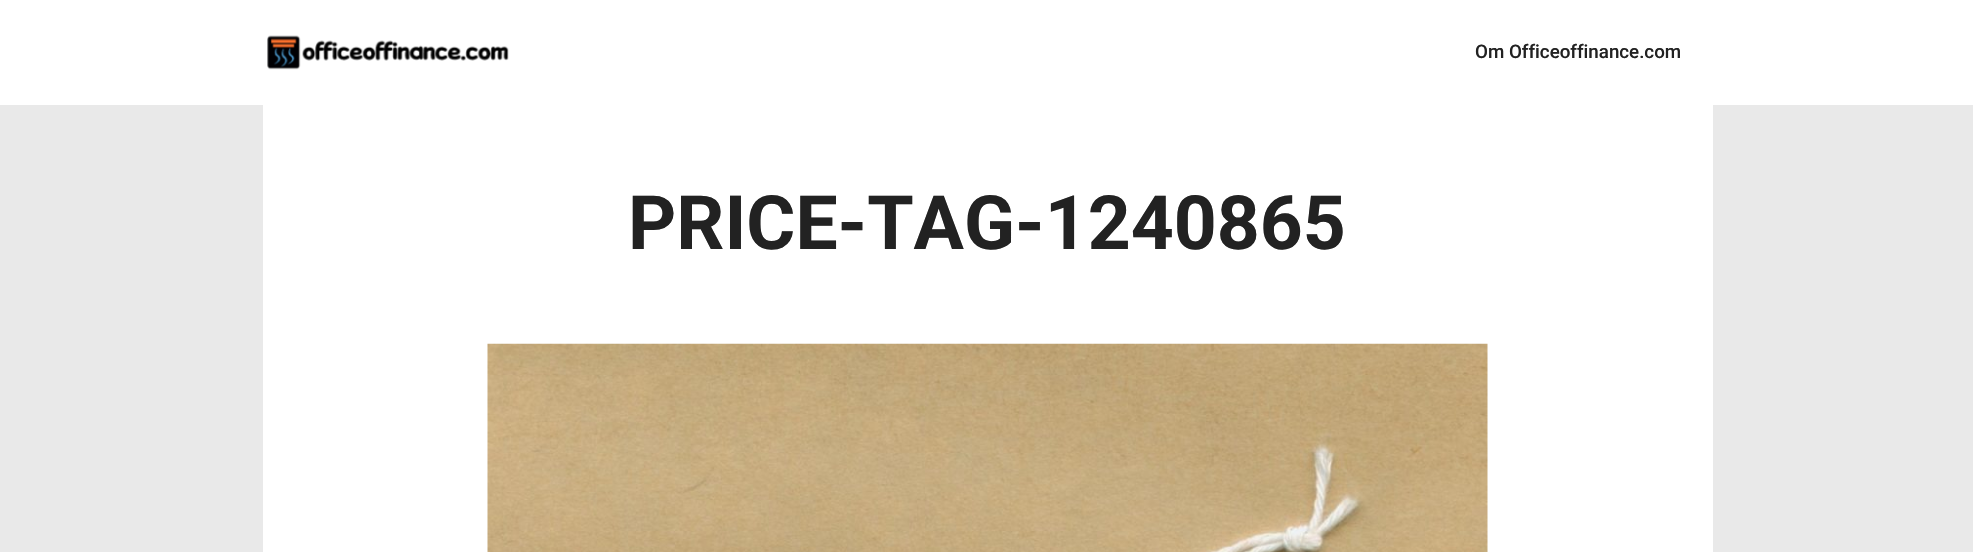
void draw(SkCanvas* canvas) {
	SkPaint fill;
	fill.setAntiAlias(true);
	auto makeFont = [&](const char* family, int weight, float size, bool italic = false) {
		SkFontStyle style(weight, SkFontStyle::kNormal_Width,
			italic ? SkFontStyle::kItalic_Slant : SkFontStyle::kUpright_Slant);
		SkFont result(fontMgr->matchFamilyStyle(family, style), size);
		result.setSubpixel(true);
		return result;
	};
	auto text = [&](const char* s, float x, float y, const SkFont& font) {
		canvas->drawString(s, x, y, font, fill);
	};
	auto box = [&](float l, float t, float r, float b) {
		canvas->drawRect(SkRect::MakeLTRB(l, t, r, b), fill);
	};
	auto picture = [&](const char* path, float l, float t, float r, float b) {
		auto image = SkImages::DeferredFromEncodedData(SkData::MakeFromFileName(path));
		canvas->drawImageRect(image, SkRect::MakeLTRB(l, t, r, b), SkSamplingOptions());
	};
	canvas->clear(0xFFE9E9E9);
	fill.setColor(0xFFFFFFFF);
	box(0, 0, 1973, 105);
	picture("image0.png", 267, 35, 509, 70);
	box(263, 105, 1713, 552);
	picture("image1.png", 487, 343, 1488, 552);
	auto font1 = makeFont("Roboto", 500, 18.75f);
	fill.setColor(0xFF222222);
	text("Om Officeoffinance.com", 1475, 58, font1);
	auto font2 = makeFont("Roboto", 700, 75);
	text("PRICE-TAG-1240865", 628, 249, font2);
}
